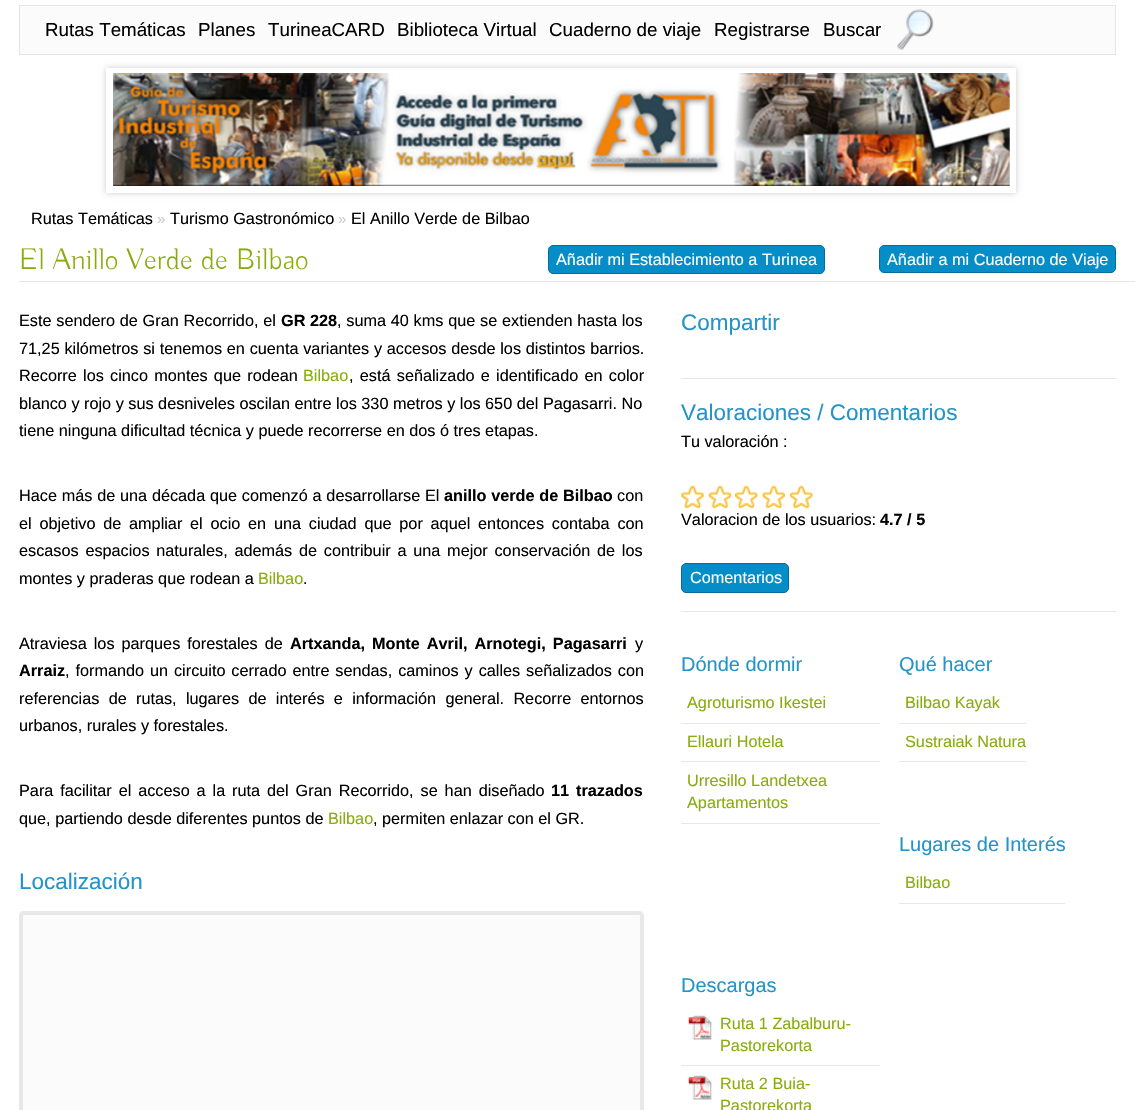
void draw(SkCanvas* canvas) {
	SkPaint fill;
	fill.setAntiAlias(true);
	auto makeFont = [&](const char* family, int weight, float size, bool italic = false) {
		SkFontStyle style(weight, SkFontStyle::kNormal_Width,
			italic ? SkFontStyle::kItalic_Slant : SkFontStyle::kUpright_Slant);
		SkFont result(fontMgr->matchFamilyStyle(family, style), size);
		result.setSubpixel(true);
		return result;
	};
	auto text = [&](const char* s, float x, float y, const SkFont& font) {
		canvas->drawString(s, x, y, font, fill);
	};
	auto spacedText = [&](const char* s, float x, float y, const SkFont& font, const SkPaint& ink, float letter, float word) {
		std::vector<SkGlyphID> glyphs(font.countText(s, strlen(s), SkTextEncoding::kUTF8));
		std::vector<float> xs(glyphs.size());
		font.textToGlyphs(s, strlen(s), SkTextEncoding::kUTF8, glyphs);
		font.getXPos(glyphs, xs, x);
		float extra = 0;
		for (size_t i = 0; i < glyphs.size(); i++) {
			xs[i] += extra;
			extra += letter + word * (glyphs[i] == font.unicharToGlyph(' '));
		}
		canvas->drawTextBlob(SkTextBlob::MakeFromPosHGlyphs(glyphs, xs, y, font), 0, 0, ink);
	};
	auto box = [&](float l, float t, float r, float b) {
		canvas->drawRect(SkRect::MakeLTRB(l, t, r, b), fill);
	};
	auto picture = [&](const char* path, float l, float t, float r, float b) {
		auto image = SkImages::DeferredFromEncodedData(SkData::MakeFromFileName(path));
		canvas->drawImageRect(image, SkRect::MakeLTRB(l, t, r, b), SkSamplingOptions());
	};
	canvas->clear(0xFFFFFFFF);
	fill.setColor(0xFFFBFBFB);
	canvas->drawRect(SkRect::MakeLTRB(19.5f, 5.5f, 1115.5f, 54.5f), fill);
	fill.setStyle(SkPaint::kStroke_Style);
	fill.setStrokeWidth(1);
	fill.setColor(0xFFE5E5E6);
	canvas->drawRect(SkRect::MakeLTRB(19.5f, 5.5f, 1115.5f, 54.5f), fill);
	picture("image0.png", 897, 9, 934, 50);
	fill.setStyle(SkPaint::kFill_Style);
	fill.setColor(0xFFCCCCCC);
	fill.setMaskFilter(SkMaskFilter::MakeBlur(kNormal_SkBlurStyle, 3));
	canvas->drawRect(SkRect::MakeLTRB(106, 68, 1016, 193), fill);
	fill.setMaskFilter(nullptr);
	fill.setColor(0xFFFFFFFF);
	box(106, 68, 1016, 193);
	picture("image1.png", 113, 73, 1010, 186);
	fill.setColor(0xFFE5E5E6);
	box(19, 281, 1135, 282);
	fill.setColor(0xFF048DC7);
	canvas->drawRoundRect(SkRect::MakeLTRB(548.5f, 245.5f, 824.5f, 273.5f), 4.5f, 4.5f, fill);
	fill.setStyle(SkPaint::kStroke_Style);
	fill.setColor(0xFF056D99);
	canvas->drawRoundRect(SkRect::MakeLTRB(548.5f, 245.5f, 824.5f, 273.5f), 4.5f, 4.5f, fill);
	fill.setStyle(SkPaint::kFill_Style);
	fill.setColor(0xFF048DC7);
	canvas->drawRoundRect(SkRect::MakeLTRB(879.5f, 245.5f, 1115.5f, 272.5f), 4.5f, 4.5f, fill);
	fill.setStyle(SkPaint::kStroke_Style);
	fill.setColor(0xFF056D99);
	canvas->drawRoundRect(SkRect::MakeLTRB(879.5f, 245.5f, 1115.5f, 272.5f), 4.5f, 4.5f, fill);
	fill.setStyle(SkPaint::kFill_Style);
	fill.setColor(0xFFFBFBFB);
	box(19, 911, 644, 1110);
	fill.setStyle(SkPaint::kStroke_Style);
	fill.setStrokeWidth(4);
	fill.setColor(0xFFE8E8E8);
	canvas->drawRoundRect(SkRect::MakeLTRB(21, 913, 642, 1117), 3, 3, fill);
	fill.setStyle(SkPaint::kFill_Style);
	box(681, 378, 1116, 379);
	box(681, 611, 1116, 612);
	picture("image2.png", 681, 485, 704, 509);
	picture("image3.png", 708, 485, 732, 509);
	picture("image4.png", 735, 485, 758, 509);
	picture("image5.png", 762, 485, 785, 509);
	picture("image6.png", 790, 485, 813, 509);
	fill.setColor(0xFF048DC7);
	canvas->drawRoundRect(SkRect::MakeLTRB(681.5f, 563.5f, 788.5f, 592.5f), 4.5f, 4.5f, fill);
	fill.setStyle(SkPaint::kStroke_Style);
	fill.setStrokeWidth(1);
	fill.setColor(0xFF056D99);
	canvas->drawRoundRect(SkRect::MakeLTRB(681.5f, 563.5f, 788.5f, 592.5f), 4.5f, 4.5f, fill);
	fill.setStyle(SkPaint::kFill_Style);
	fill.setColor(0xFFE8E8E8);
	box(681, 723, 880, 724);
	box(681, 761, 880, 762);
	box(681, 823, 880, 824);
	box(899, 723, 1026, 724);
	box(899, 761, 1026, 762);
	box(899, 903, 1065, 904);
	box(681, 1065, 880, 1066);
	picture("image7.png", 688, 1015, 712, 1040);
	picture("image7.png", 688, 1075, 712, 1100);
	auto font1 = makeFont("Liberation Sans", 400, 18.75f);
	fill.setColor(0xFF000000);
	text("Rutas Temáticas", 45, 36, font1);
	text("Planes", 198, 36, font1);
	text("TurineaCARD", 268, 36, font1);
	text("Biblioteca Virtual", 397, 36, font1);
	text("Cuaderno de viaje", 549, 36, font1);
	text("Registrarse", 714, 36, font1);
	text("Buscar", 823, 36, font1);
	auto font2 = makeFont("Liberation Sans", 400, 16.25f);
	text("Rutas Temáticas", 31, 224, font2);
	auto font3 = makeFont("Liberation Sans", 400, 15);
	fill.setColor(0xFFCACBCE);
	text("»", 157, 224, font3);
	fill.setColor(0xFF000000);
	text("Turismo Gastronómico", 170, 224, font2);
	fill.setColor(0xFFCACBCE);
	text("»", 338, 224, font3);
	fill.setColor(0xFF000000);
	text("El Anillo Verde de Bilbao", 351, 224, font2);
	auto font4 = makeFont("Buda", 300, 30);
	fill.setColor(0xFF88AC0D);
	text("El Anillo Verde de Bilbao", 19, 269, font4);
	fill.setColor(0xFFFFFFFF);
	text("Añadir mi Establecimiento a Turinea", 556, 265, font2);
	text("Añadir a mi Cuaderno de Viaje", 887, 265, font2);
	fill.setColor(0xFF000000);
	spacedText("Este sendero de Gran Recorrido, el", 19, 326, font2, fill, 0, 0.25f);
	auto font5 = makeFont("Liberation Sans", 700, 16.25f);
	text("GR 228", 281, 326, font5);
	spacedText(", suma 40 kms que se extienden hasta los", 337, 326, font2, fill, 0, 0.25f);
	spacedText("71,25 kilómetros si tenemos en cuenta variantes y accesos desde los distintos barrios.", 19, 354, font2, fill, 0, 0.25f);
	spacedText("Recorre los cinco montes que rodean", 19, 381, font2, fill, 0, 1.75f);
	fill.setColor(0xFF88AC0D);
	text("Bilbao", 303, 381, font2);
	fill.setColor(0xFF000000);
	spacedText(", está señalizado e identificado en color", 349, 381, font2, fill, 0, 1.75f);
	text("blanco y rojo y sus desniveles oscilan entre los 330 metros y los 650 del Pagasarri. No", 19, 409, font2);
	text("tiene ninguna dificultad técnica y puede recorrerse en dos ó tres etapas.", 19, 436, font2);
	spacedText("Hace más de una década que comenzó a desarrollarse El", 19, 501, font2, fill, 0, 0.25f);
	spacedText("anillo verde de Bilbao", 444, 501, font5, fill, 0, 0.25f);
	text("con", 617, 501, font2);
	spacedText("el objetivo de ampliar el ocio en una ciudad que por aquel entonces contaba con", 19, 529, font2, fill, 0, 3.25f);
	spacedText("escasos espacios naturales, además de contribuir a una mejor conservación de los", 19, 556, font2, fill, 0, 2.25f);
	text("montes y praderas que rodean a", 19, 584, font2);
	fill.setColor(0xFF88AC0D);
	text("Bilbao", 258, 584, font2);
	fill.setColor(0xFF000000);
	text(".", 303, 584, font2);
	spacedText("Atraviesa los parques forestales de", 19, 649, font2, fill, 0, 2.5f);
	spacedText("Artxanda, Monte Avril, Arnotegi, Pagasarri", 290, 649, font5, fill, 0, 2.5f);
	text("y", 635, 649, font2);
	text("Arraiz", 19, 676, font5);
	spacedText(", formando un circuito cerrado entre sendas, caminos y calles señalizados con", 65, 676, font2, fill, 0, 1.4f);
	spacedText("referencias de rutas, lugares de interés e información general. Recorre entornos", 19, 704, font2, fill, 0, 4.75f);
	text("urbanos, rurales y forestales.", 19, 731, font2);
	spacedText("Para facilitar el acceso a la ruta del Gran Recorrido, se han diseñado", 19, 796, font2, fill, 0, 2.4f);
	spacedText("11 trazados", 551, 796, font5, fill, 0, 2.4f);
	text("que, partiendo desde diferentes puntos de", 19, 824, font2);
	fill.setColor(0xFF88AC0D);
	text("Bilbao", 328, 824, font2);
	fill.setColor(0xFF000000);
	text(", permiten enlazar con el GR.", 373, 824, font2);
	auto font6 = makeFont("Liberation Sans", 400, 22.5f);
	fill.setColor(0xFF2393C8);
	text("Localización", 19, 889, font6);
	text("Compartir", 681, 330, font6);
	text("Valoraciones / Comentarios", 681, 420, font6);
	fill.setColor(0xFF000000);
	text("Tu valoración :", 681, 447, font2);
	text("Valoracion de los usuarios:", 681, 525, font2);
	text("4.7 / 5", 880, 525, font5);
	fill.setColor(0xFFFFFFFF);
	text("Comentarios", 690, 583, font2);
	auto font7 = makeFont("Liberation Sans", 400, 20);
	fill.setColor(0xFF2393C8);
	text("Dónde dormir", 681, 671, font7);
	fill.setColor(0xFF88AC0D);
	text("Agroturismo Ikestei", 687, 708, font2);
	text("Ellauri Hotela", 687, 747, font2);
	text("Urresillo Landetxea", 687, 786, font2);
	text("Apartamentos", 687, 808, font2);
	fill.setColor(0xFF2393C8);
	text("Qué hacer", 899, 671, font7);
	fill.setColor(0xFF88AC0D);
	text("Bilbao Kayak", 905, 708, font2);
	text("Sustraiak Natura", 905, 747, font2);
	fill.setColor(0xFF2393C8);
	text("Lugares de Interés", 899, 851, font7);
	fill.setColor(0xFF88AC0D);
	text("Bilbao", 905, 888, font2);
	fill.setColor(0xFF2393C8);
	text("Descargas", 681, 992, font7);
	fill.setColor(0xFF88AC0D);
	text("Ruta 1 Zabalburu-", 720, 1029, font2);
	text("Pastorekorta", 720, 1051, font2);
	text("Ruta 2 Buia-", 720, 1089, font2);
	text("Pastorekorta", 720, 1111, font2);
}
